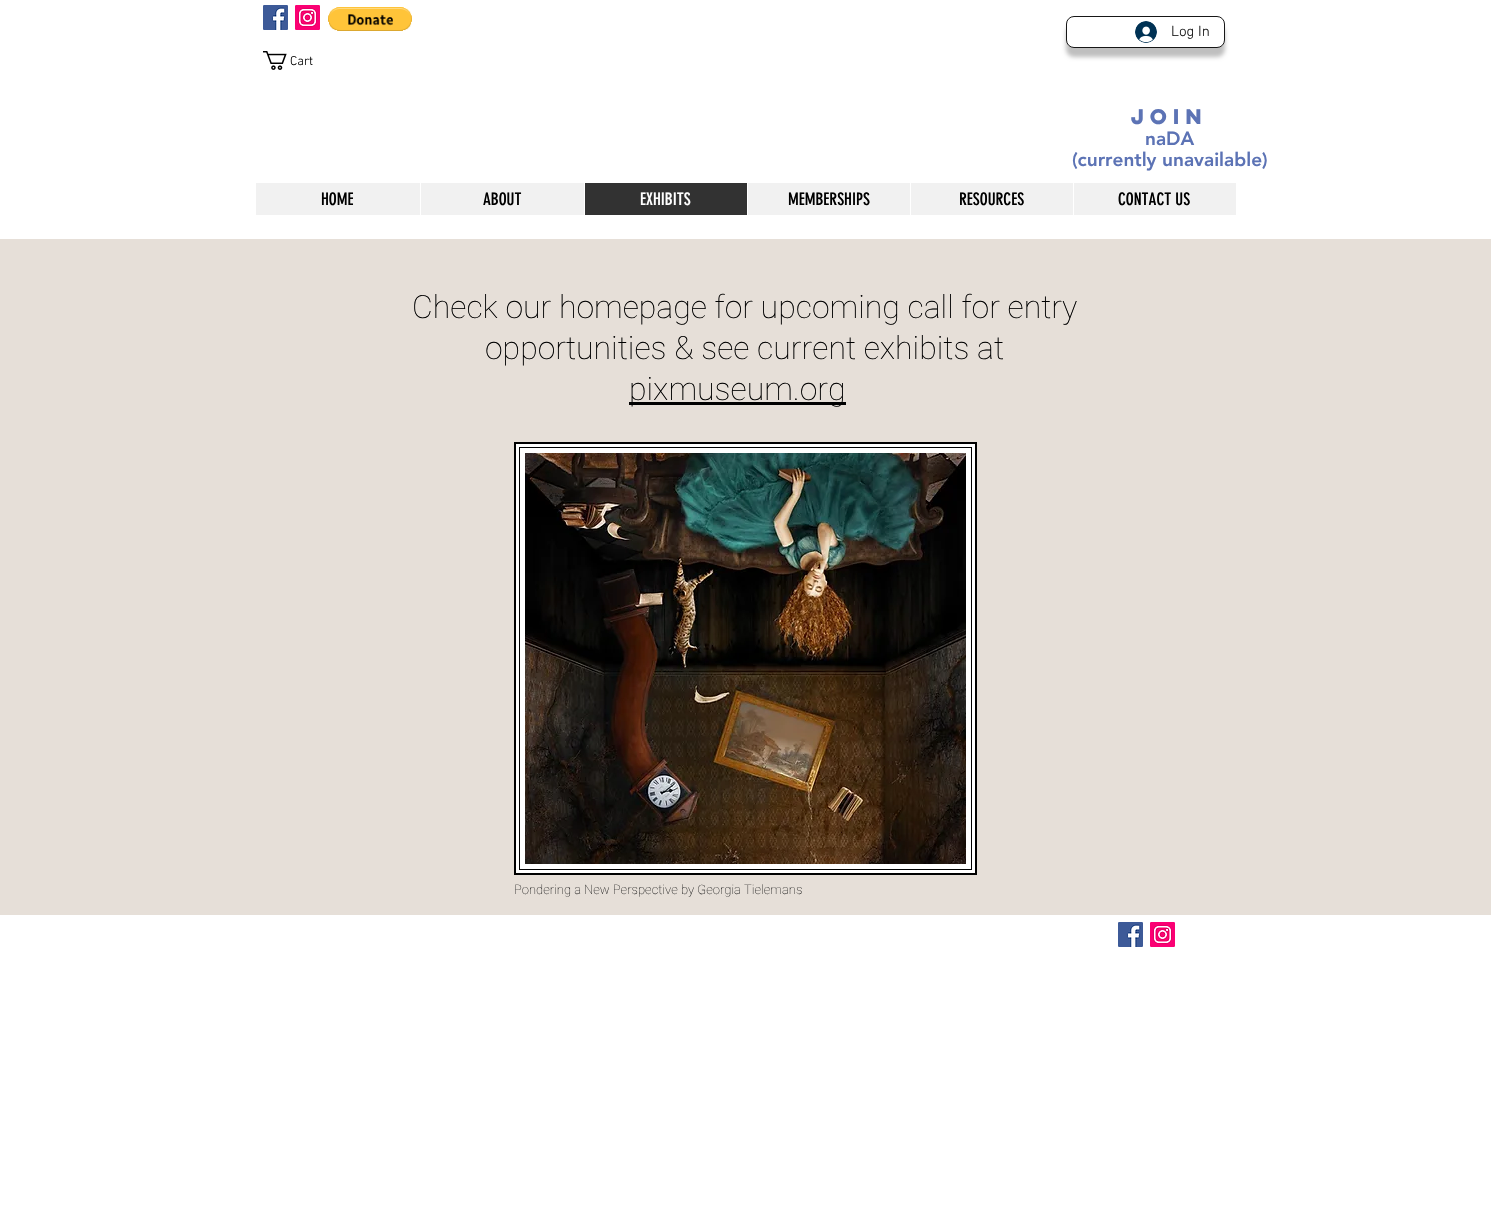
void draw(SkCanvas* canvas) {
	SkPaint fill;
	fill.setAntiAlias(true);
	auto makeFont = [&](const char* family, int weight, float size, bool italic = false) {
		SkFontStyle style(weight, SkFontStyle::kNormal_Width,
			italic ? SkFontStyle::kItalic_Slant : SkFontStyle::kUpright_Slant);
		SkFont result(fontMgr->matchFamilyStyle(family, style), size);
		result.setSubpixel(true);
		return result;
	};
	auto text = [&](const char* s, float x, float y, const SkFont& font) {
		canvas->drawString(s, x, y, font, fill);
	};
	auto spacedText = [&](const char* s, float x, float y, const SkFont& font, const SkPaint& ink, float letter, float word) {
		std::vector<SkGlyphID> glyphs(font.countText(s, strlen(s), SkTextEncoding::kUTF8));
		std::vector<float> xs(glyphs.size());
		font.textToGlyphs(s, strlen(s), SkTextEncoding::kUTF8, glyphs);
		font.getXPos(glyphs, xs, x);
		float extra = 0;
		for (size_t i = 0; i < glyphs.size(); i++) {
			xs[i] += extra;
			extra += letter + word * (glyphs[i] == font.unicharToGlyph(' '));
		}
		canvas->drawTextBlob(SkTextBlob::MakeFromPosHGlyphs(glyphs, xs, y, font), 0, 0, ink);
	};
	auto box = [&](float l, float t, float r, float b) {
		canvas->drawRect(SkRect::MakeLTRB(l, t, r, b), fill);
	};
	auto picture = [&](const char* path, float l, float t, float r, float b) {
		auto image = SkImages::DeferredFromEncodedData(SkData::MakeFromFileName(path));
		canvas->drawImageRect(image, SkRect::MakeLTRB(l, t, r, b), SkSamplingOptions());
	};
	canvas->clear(0xFFFFFFFF);
	picture("image0.png", 263, 5, 288, 30);
	picture("image1.png", 295, 5, 320, 30);
	picture("image2.png", 328, 7, 412, 31);
	fill.setColor(0x40000000);
	fill.setMaskFilter(SkMaskFilter::MakeBlur(kNormal_SkBlurStyle, 2));
	canvas->drawRoundRect(SkRect::MakeLTRB(1066, 25, 1225, 57), 8, 8, fill);
	fill.setMaskFilter(nullptr);
	fill.setColor(0xFFFFFFFF);
	canvas->drawRoundRect(SkRect::MakeLTRB(1066.5f, 16.5f, 1224.5f, 47.5f), 7.5f, 7.5f, fill);
	fill.setStyle(SkPaint::kStroke_Style);
	fill.setStrokeWidth(1);
	fill.setColor(0xFF171717);
	canvas->drawRoundRect(SkRect::MakeLTRB(1066.5f, 16.5f, 1224.5f, 47.5f), 7.5f, 7.5f, fill);
	picture("image3.png", 1135, 21, 1157, 43);
	picture("image4.png", 263, 51, 287, 70);
	fill.setStyle(SkPaint::kFill_Style);
	fill.setColor(0xFFF1F1F1);
	box(256, 183, 1236, 215);
	fill.setColor(0xFFFFFFFF);
	box(420, 183, 421, 215);
	fill.setColor(0xFF323232);
	box(585, 183, 747, 215);
	fill.setColor(0xFFFFFFFF);
	box(584, 183, 585, 215);
	box(747, 183, 748, 215);
	box(910, 183, 911, 215);
	box(1073, 183, 1074, 215);
	fill.setColor(0xFFE6DFD8);
	box(0, 239, 1491, 915);
	fill.setColor(0xFF000000);
	box(629, 402, 846, 405);
	fill.setColor(0xFFFFFFFF);
	canvas->drawRect(SkRect::MakeLTRB(515, 443, 976, 874), fill);
	fill.setStyle(SkPaint::kStroke_Style);
	fill.setStrokeWidth(2);
	fill.setColor(0xFF000000);
	canvas->drawRect(SkRect::MakeLTRB(515, 443, 976, 874), fill);
	picture("image5.png", 525, 453, 966, 864);
	fill.setStrokeWidth(1);
	canvas->drawRect(SkRect::MakeLTRB(519.5f, 447.5f, 971.5f, 869.5f), fill);
	picture("image0.png", 1118, 922, 1143, 947);
	picture("image1.png", 1150, 922, 1175, 947);
	auto font1 = makeFont("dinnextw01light", 300, 15);
	fill.setStyle(SkPaint::kFill_Style);
	fill.setColor(0xFF171717);
	text("Log In", 1171, 36, font1);
	auto font2 = makeFont("dinnextw01light", 300, 13);
	fill.setColor(0xFF000000);
	text("Cart", 290, 65, font2);
	auto font3 = makeFont("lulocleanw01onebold", 700, 19);
	fill.setColor(0xFF5C73B5);
	spacedText("JOIN", 1131, 124, font3, fill, 2, 0);
	auto font4 = makeFont("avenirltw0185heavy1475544", 900, 19);
	text("naDA", 1145, 145, font4);
	text("(currently unavailable)", 1072, 166, font4);
	auto font5 = makeFont("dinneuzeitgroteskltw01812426", 400, 17);
	fill.setColor(0xFF000000);
	text("HOME", 321, 205, font5);
	text("ABOUT", 483, 205, font5);
	fill.setColor(0xFFFFFFFF);
	text("EXHIBITS", 640, 205, font5);
	fill.setColor(0xFF000000);
	text("MEMBERSHIPS", 788, 205, font5);
	text("RESOURCES", 959, 205, font5);
	text("CONTACT US", 1118, 205, font5);
	auto font6 = makeFont("Roboto", 100, 32);
	text("Check our homepage for upcoming call for entry", 412, 318, font6);
	text("opportunities & see current exhibits at", 485, 359, font6);
	text("pixmuseum.org", 629, 400, font6);
	auto font7 = makeFont("Roboto", 100, 13);
	fill.setColor(0xFF171717);
	text("Pondering a New Perspective by Georgia Tielemans", 514, 894, font7);
}
